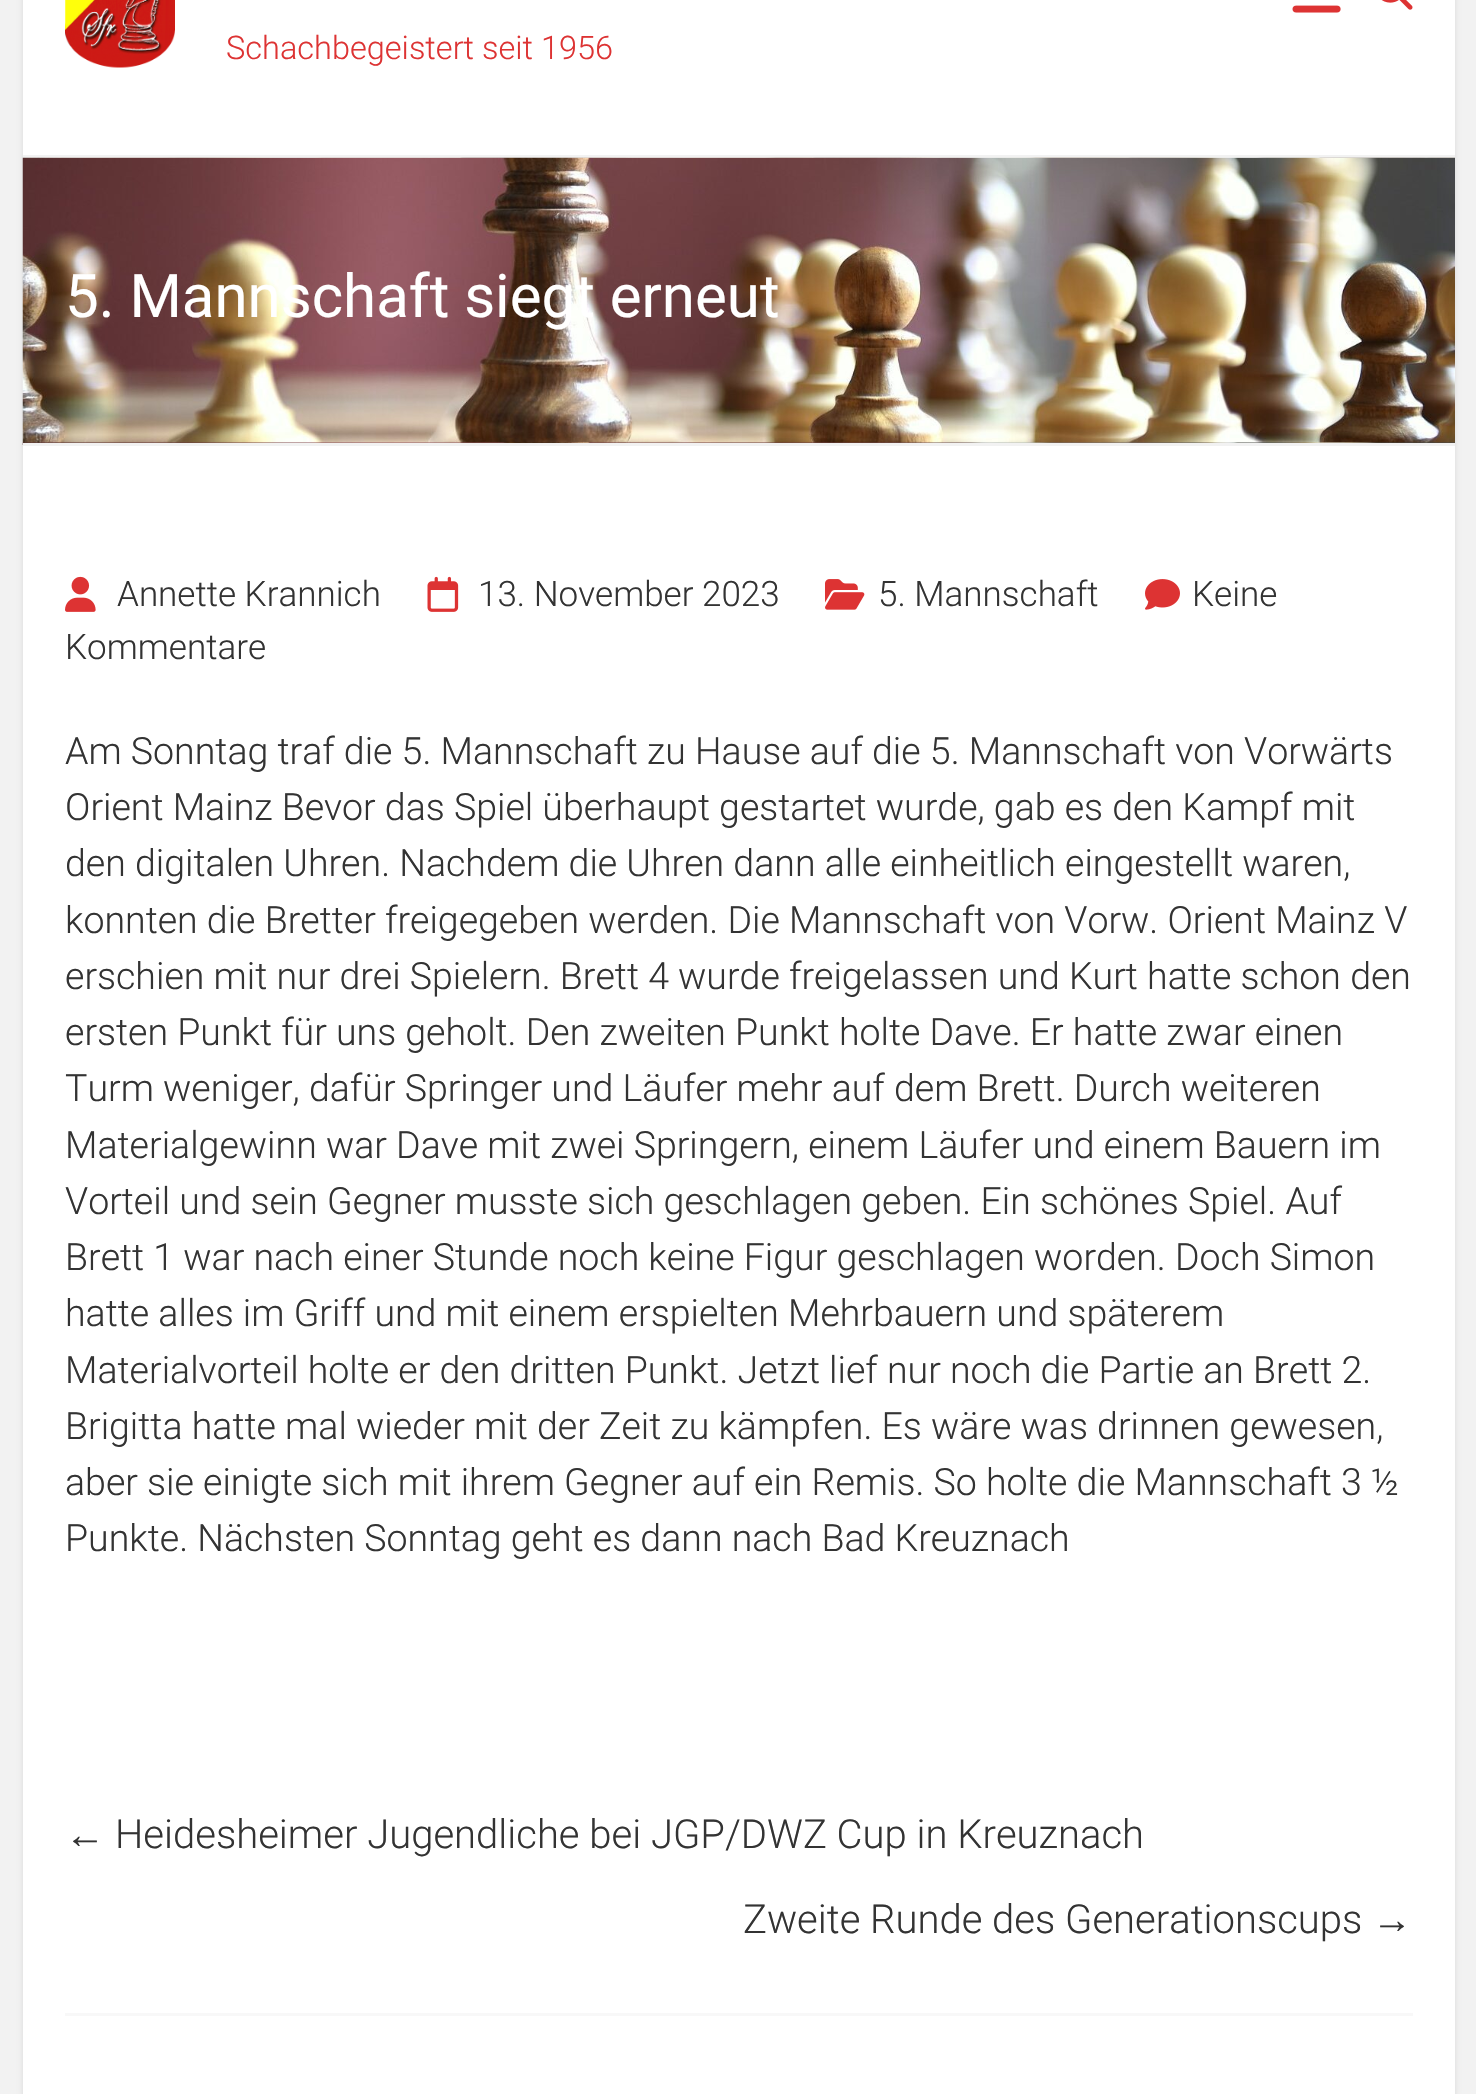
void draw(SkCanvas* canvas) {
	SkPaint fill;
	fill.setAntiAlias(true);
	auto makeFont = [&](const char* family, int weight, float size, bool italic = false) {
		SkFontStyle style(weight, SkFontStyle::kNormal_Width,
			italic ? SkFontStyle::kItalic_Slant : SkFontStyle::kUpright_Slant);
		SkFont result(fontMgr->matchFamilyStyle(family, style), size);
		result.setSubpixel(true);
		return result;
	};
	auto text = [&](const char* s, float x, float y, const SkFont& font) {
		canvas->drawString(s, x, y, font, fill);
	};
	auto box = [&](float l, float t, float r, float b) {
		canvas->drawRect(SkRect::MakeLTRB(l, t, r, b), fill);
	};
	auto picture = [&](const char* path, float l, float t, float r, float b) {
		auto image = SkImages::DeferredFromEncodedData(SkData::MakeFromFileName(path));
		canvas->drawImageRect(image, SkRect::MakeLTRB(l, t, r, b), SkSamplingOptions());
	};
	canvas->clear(0xFFF2F2F2);
	fill.setColor(0x1A000000);
	fill.setMaskFilter(SkMaskFilter::MakeBlur(kNormal_SkBlurStyle, 2.5f));
	canvas->drawRect(SkRect::MakeLTRB(23, -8, 1455, 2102), fill);
	fill.setMaskFilter(nullptr);
	fill.setColor(0xFFFFFFFF);
	box(23, 0, 1455, 2094);
	fill.setColor(0xFFF2F2F2);
	box(23, 155, 1455, 158);
	picture("image0.png", 1292, 5, 1341, 13);
	picture("image1.png", 1381, 0, 1413, 10);
	picture("image2.png", 65, 0, 175, 68);
	picture("image3.png", 22, 157, 1455, 445);
	box(23, 443, 1455, 446);
	picture("image4.png", 65, 576, 96, 612);
	picture("image5.png", 427, 576, 459, 612);
	picture("image6.png", 825, 579, 865, 610);
	picture("image7.png", 1145, 579, 1180, 610);
	fill.setColor(0xFFF8F8F8);
	box(65, 2013, 1413, 2016);
	auto font1 = makeFont("Roboto", 300, 32.5f);
	fill.setColor(0xFFDD3333);
	text("Schachbegeistert seit 1956", 226, 59, font1);
	auto font2 = makeFont("Roboto", 400, 60);
	fill.setColor(0xFFFFFFFF);
	text("5. Mannschaft siegt erneut", 65, 317, font2);
	auto font3 = makeFont("Roboto", 300, 35);
	fill.setColor(0xFF333333);
	text("Annette Krannich", 117, 606, font3);
	text("13. November 2023", 478, 606, font3);
	text("5. Mannschaft", 878, 606, font3);
	text("Keine", 1192, 606, font3);
	text("Kommentare", 65, 659, font3);
	auto font4 = makeFont("Roboto", 300, 37.5f);
	text("Am Sonntag traf die 5. Mannschaft zu Hause auf die 5. Mannschaft von Vorwärts", 65, 764, font4);
	text("Orient Mainz Bevor das Spiel überhaupt gestartet wurde, gab es den Kampf mit", 65, 820, font4);
	text("den digitalen Uhren. Nachdem die Uhren dann alle einheitlich eingestellt waren,", 65, 876, font4);
	text("konnten die Bretter freigegeben werden. Die Mannschaft von Vorw. Orient Mainz V", 65, 933, font4);
	text("erschien mit nur drei Spielern. Brett 4 wurde freigelassen und Kurt hatte schon den", 65, 989, font4);
	text("ersten Punkt für uns geholt. Den zweiten Punkt holte Dave. Er hatte zwar einen", 65, 1045, font4);
	text("Turm weniger, dafür Springer und Läufer mehr auf dem Brett. Durch weiteren", 65, 1101, font4);
	text("Materialgewinn war Dave mit zwei Springern, einem Läufer und einem Bauern im", 65, 1158, font4);
	text("Vorteil und sein Gegner musste sich geschlagen geben. Ein schönes Spiel. Auf", 65, 1214, font4);
	text("Brett 1 war nach einer Stunde noch keine Figur geschlagen worden. Doch Simon", 65, 1270, font4);
	text("hatte alles im Griff und mit einem erspielten Mehrbauern und späterem", 65, 1326, font4);
	text("Materialvorteil holte er den dritten Punkt. Jetzt lief nur noch die Partie an Brett 2.", 65, 1383, font4);
	text("Brigitta hatte mal wieder mit der Zeit zu kämpfen. Es wäre was drinnen gewesen,", 65, 1439, font4);
	text("aber sie einigte sich mit ihrem Gegner auf ein Remis. So holte die Mannschaft 3 ½", 65, 1495, font4);
	text("Punkte. Nächsten Sonntag geht es dann nach Bad Kreuznach", 65, 1551, font4);
	auto font5 = makeFont("Liberation Sans", 400, 40);
	text("←", 65, 1848, font5);
	auto font6 = makeFont("Roboto", 300, 40);
	text("Heidesheimer Jugendliche bei JGP/DWZ Cup in Kreuznach", 115, 1848, font6);
	text("Zweite Runde des Generationscups", 743, 1933, font6);
	text("→", 1372, 1933, font5);
}
